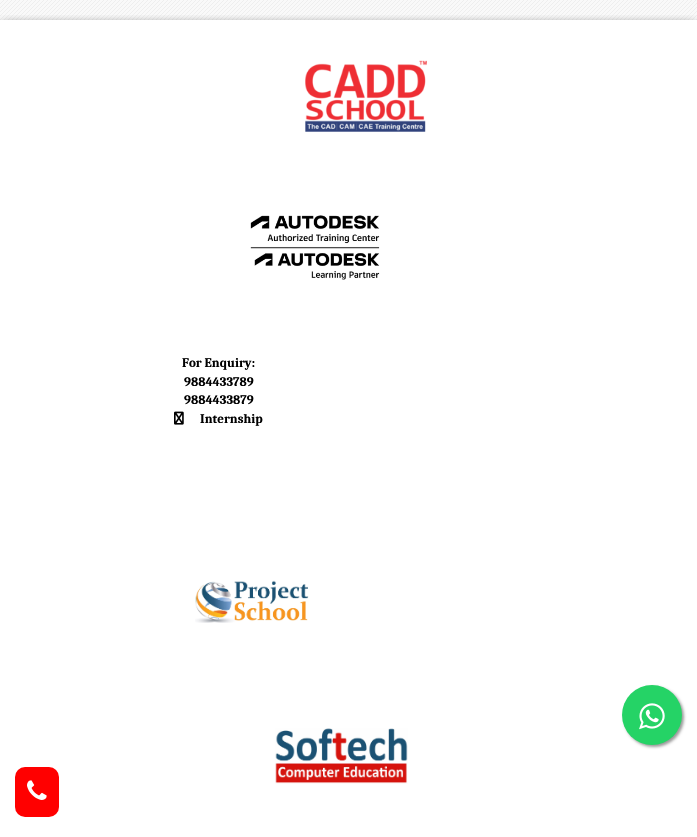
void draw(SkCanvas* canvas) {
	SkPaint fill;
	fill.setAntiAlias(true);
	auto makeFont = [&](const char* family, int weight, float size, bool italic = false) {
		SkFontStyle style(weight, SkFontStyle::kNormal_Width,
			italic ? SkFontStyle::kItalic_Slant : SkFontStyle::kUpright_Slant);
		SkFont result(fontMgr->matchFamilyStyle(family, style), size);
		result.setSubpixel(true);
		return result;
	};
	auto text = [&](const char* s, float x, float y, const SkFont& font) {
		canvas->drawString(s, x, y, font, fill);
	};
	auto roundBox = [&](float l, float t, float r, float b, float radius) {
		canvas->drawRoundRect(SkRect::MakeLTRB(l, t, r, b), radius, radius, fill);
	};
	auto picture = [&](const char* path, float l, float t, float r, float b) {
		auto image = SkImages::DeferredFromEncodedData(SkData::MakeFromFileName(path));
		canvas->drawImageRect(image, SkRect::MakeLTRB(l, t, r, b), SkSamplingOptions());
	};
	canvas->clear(0xFFFFFFFF);
	picture("image0.png", 0, 0, 697, 20);
	canvas->save();
	canvas->clipRect(SkRect::MakeLTRB(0, 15, 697, 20));
	fill.setColor(0xBF000000);
	fill.setMaskFilter(SkMaskFilter::MakeBlur(kNormal_SkBlurStyle, 5));
	canvas->drawRect(SkRect::MakeLTRB(2, 25, 695, 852), fill);
	fill.setMaskFilter(nullptr);
	canvas->restore();
	picture("image1.png", 305, 60, 427, 132);
	picture("image2.png", 250, 215, 380, 280);
	picture("image3.png", 174, 411, 184, 425);
	picture("image4.png", 195, 580, 309, 623);
	picture("image5.png", 275, 728, 408, 784);
	fill.setColor(0xFF999999);
	fill.setMaskFilter(SkMaskFilter::MakeBlur(kNormal_SkBlurStyle, 1.5f));
	canvas->drawRoundRect(SkRect::MakeLTRB(624, 687, 684, 747), 30, 30, fill);
	fill.setMaskFilter(nullptr);
	fill.setColor(0xFF25D366);
	canvas->drawCircle(652, 715, 30, fill);
	picture("image6.png", 639, 703, 665, 730);
	fill.setColor(0xFFFF0000);
	roundBox(15, 767, 59, 817, 10);
	picture("image7.png", 27, 780, 47, 800);
	auto font1 = makeFont("Caladea", 700, 13);
	fill.setColor(0xFF000000);
	text("For Enquiry:", 182, 367, font1);
	text("9884433789", 184, 386, font1);
	text("9884433879", 184, 404, font1);
	text("Internship", 200, 423, font1);
}
